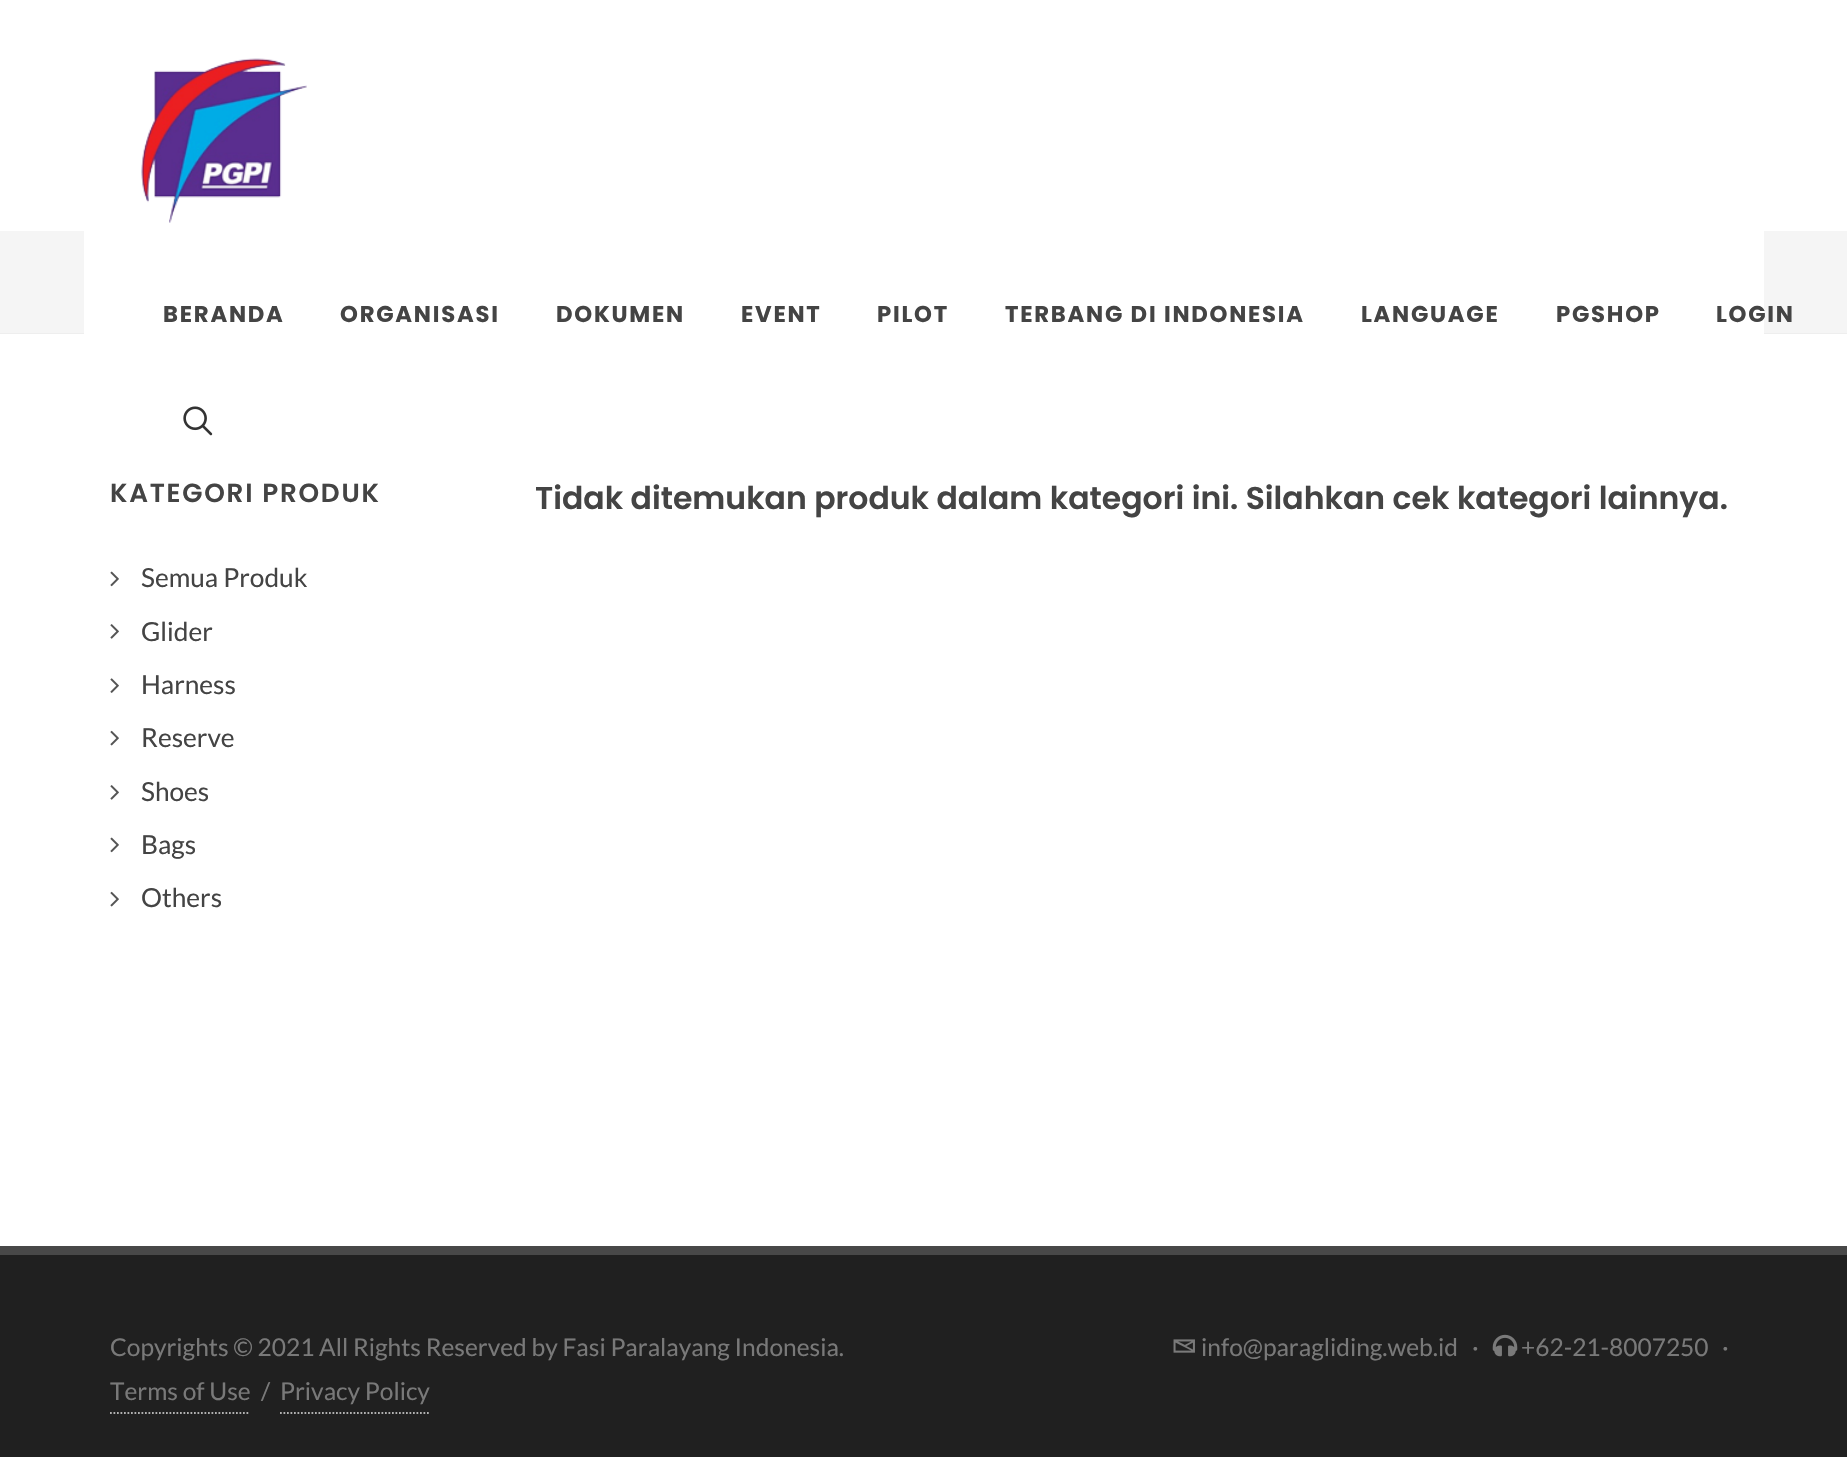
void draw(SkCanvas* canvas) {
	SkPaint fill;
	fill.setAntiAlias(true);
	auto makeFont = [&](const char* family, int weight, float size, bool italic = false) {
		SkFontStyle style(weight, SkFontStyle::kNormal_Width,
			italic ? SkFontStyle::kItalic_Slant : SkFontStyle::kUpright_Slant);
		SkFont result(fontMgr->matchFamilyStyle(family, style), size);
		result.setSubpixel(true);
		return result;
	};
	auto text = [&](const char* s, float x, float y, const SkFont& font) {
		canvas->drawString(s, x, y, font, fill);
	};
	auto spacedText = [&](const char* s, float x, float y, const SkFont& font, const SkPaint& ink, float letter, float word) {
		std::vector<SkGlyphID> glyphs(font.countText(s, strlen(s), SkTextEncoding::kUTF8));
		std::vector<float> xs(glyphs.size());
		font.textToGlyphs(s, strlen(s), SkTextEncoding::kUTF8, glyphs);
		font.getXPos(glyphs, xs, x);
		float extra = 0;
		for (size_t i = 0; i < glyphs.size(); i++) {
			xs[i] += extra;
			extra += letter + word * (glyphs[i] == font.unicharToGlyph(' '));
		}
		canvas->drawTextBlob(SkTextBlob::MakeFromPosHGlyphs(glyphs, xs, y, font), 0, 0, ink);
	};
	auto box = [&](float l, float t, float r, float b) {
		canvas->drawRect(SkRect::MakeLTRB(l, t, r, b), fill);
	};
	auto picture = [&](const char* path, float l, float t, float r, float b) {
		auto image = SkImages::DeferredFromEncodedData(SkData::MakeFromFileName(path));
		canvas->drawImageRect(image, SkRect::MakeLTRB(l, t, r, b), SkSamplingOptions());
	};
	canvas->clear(0xFFFFFFFF);
	fill.setColor(0xFFF5F5F5);
	box(0, 231, 1847, 333);
	fill.setColor(0xFFEEEEEE);
	box(0, 333, 1847, 334);
	fill.setColor(0xFFFFFFFF);
	box(84, 231, 1764, 334);
	picture("image0.png", 141, 58, 307, 223);
	picture("image1.png", 183, 406, 213, 436);
	picture("image2.png", 110, 571, 119, 587);
	picture("image3.png", 110, 624, 119, 639);
	picture("image4.png", 110, 678, 119, 693);
	picture("image5.png", 110, 730, 119, 746);
	picture("image3.png", 110, 785, 119, 800);
	picture("image2.png", 110, 837, 119, 853);
	picture("image5.png", 110, 891, 119, 907);
	fill.setColor(0xFF484848);
	box(0, 1246, 1847, 1255);
	fill.setColor(0xFF202020);
	box(0, 1255, 1847, 1457);
	fill.setStyle(SkPaint::kStroke_Style);
	fill.setStrokeWidth(1.8f);
	fill.setColor(0xFFB1B1B1);
	fill.setPathEffect(SkDashPathEffect::Make({{1.75f, 1.75f}}, 0));
	canvas->drawPath(SkPathBuilder().moveTo(110, 1413).lineTo(250, 1413).detach(), fill);
	fill.setPathEffect(nullptr);
	fill.setPathEffect(SkDashPathEffect::Make({{1.75f, 1.75f}}, 0));
	canvas->drawPath(SkPathBuilder().moveTo(280, 1413).lineTo(430.5f, 1413).detach(), fill);
	fill.setPathEffect(nullptr);
	picture("image6.png", 1173, 1339, 1195, 1353);
	picture("image7.png", 1492, 1334, 1518, 1357);
	auto font1 = makeFont("Poppins", 700, 22.75f);
	fill.setStyle(SkPaint::kFill_Style);
	fill.setColor(0xFF444444);
	spacedText("BERANDA", 163, 322, font1, fill, 1.75f, 0);
	spacedText("ORGANISASI", 340, 322, font1, fill, 1.75f, 0);
	spacedText("DOKUMEN", 556, 322, font1, fill, 1.75f, 0);
	spacedText("EVENT", 741, 322, font1, fill, 1.75f, 0);
	spacedText("PILOT", 877, 322, font1, fill, 1.75f, 0);
	spacedText("TERBANG DI INDONESIA", 1005, 322, font1, fill, 1.75f, 0);
	spacedText("LANGUAGE", 1361, 322, font1, fill, 1.75f, 0);
	spacedText("PGSHOP", 1556, 322, font1, fill, 1.75f, 0);
	spacedText("LOGIN", 1716, 322, font1, fill, 1.75f, 0);
	auto font2 = makeFont("Poppins", 600, 26.25f);
	spacedText("KATEGORI PRODUK", 110, 502, font2, fill, 1.75f, 0);
	auto font3 = makeFont("Lato", 400, 26.25f);
	text("Semua Produk", 141, 587, font3);
	text("Glider", 141, 641, font3);
	text("Harness", 141, 694, font3);
	text("Reserve", 141, 747, font3);
	text("Shoes", 141, 801, font3);
	text("Bags", 141, 854, font3);
	text("Others", 141, 907, font3);
	auto font4 = makeFont("Poppins", 600, 31.5f);
	text("Tidak ditemukan produk dalam kategori ini. Silahkan cek kategori lainnya.", 535, 509, font4);
	auto font5 = makeFont("Lato", 400, 24.5f);
	fill.setColor(0xFF797979);
	text("Copyrights © 2021 All Rights Reserved by Fasi Paralayang Indonesia.", 110, 1356, font5);
	text("Terms of Use", 110, 1400, font5);
	text("/", 261, 1400, font5);
	text("Privacy Policy", 280, 1400, font5);
	text("info@paragliding.web.id", 1201, 1356, font5);
	text("·", 1472, 1356, font5);
	text("+62-21-8007250", 1521, 1356, font5);
	text("·", 1722, 1356, font5);
}
